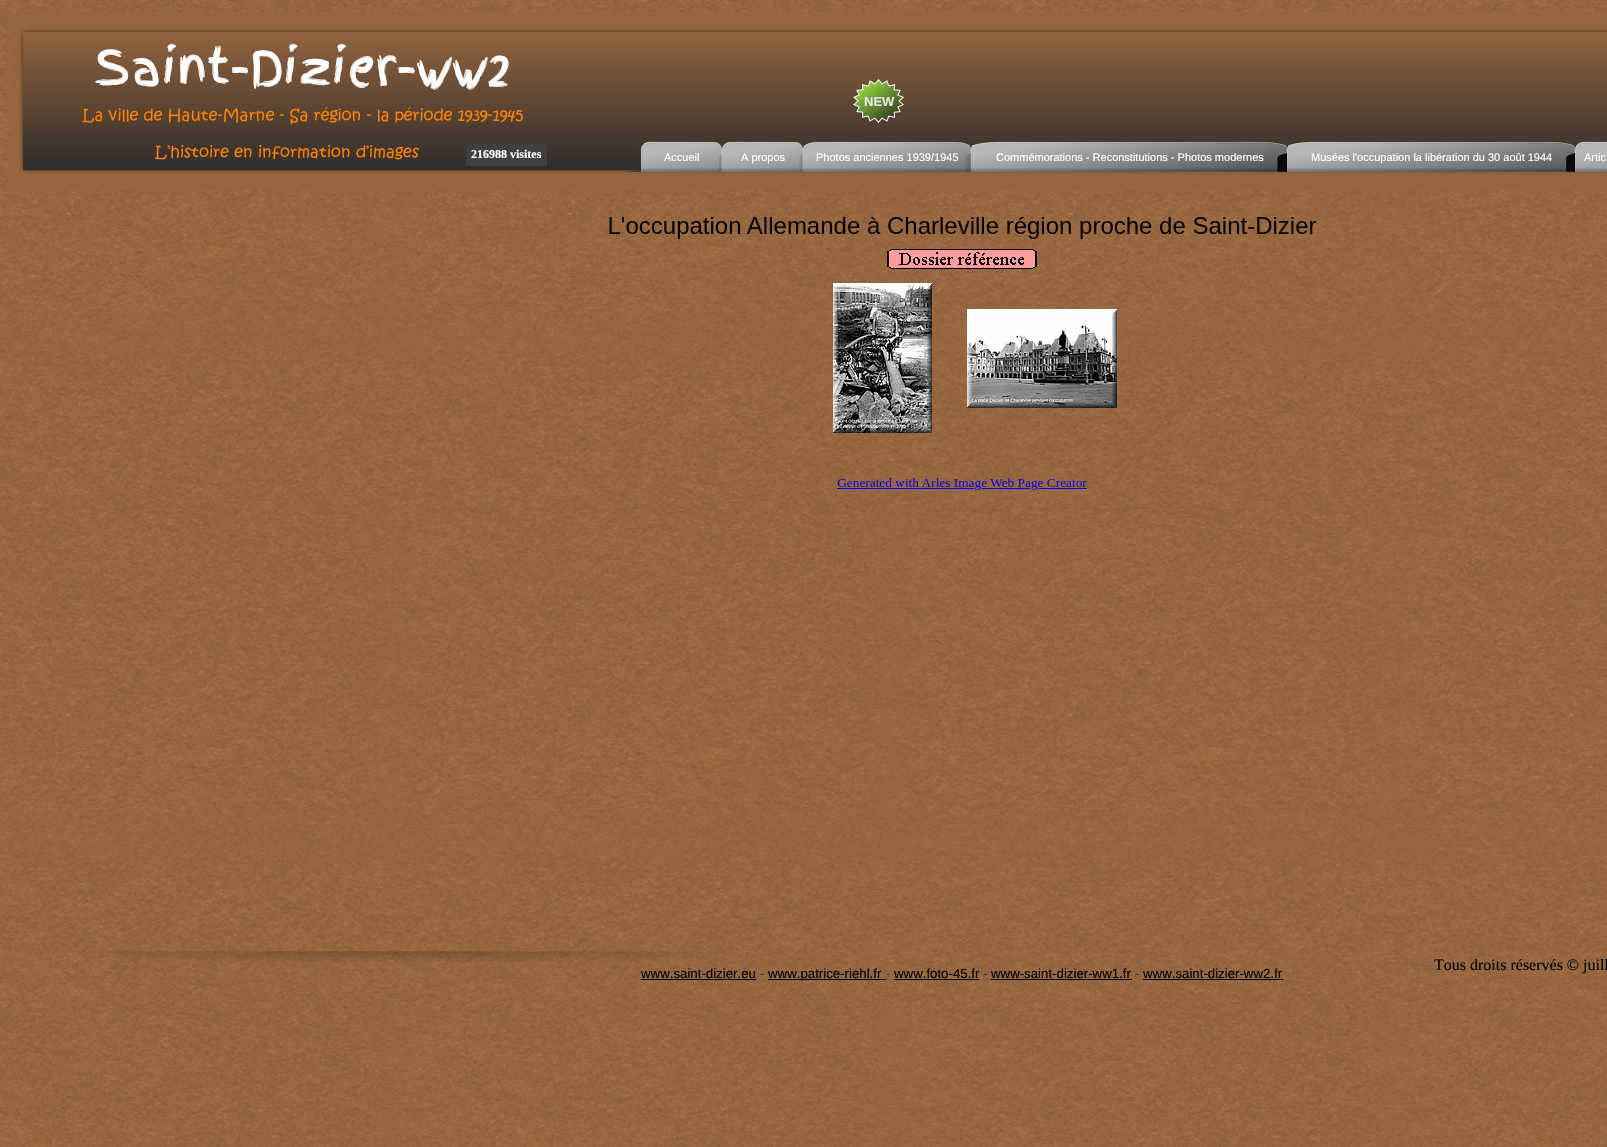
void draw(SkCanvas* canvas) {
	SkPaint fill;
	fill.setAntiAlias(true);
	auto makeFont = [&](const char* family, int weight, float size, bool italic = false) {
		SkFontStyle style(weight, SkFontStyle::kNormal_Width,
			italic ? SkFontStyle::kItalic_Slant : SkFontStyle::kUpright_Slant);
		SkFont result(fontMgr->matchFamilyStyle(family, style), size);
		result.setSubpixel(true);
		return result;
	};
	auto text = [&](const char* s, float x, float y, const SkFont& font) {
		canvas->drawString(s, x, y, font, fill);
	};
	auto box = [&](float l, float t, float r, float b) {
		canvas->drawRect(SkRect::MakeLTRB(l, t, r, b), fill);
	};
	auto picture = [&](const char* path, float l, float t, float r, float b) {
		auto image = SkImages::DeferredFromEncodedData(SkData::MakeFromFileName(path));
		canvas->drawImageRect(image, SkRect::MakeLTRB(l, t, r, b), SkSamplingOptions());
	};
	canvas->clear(0xFFFFFFFF);
	picture("image0.png", 0, 0, 1607, 1147);
	picture("image1.png", 10, 12, 1607, 190);
	picture("image2.png", 852, 79, 904, 123);
	picture("image3.png", 155, 145, 419, 160);
	fill.setColor(0xFF404040);
	box(466, 144, 547, 166);
	picture("image4.png", 625, 141, 722, 172);
	picture("image5.png", 722, 141, 803, 172);
	picture("image6.png", 803, 141, 971, 172);
	picture("image7.png", 971, 141, 1287, 172);
	picture("image8.png", 1287, 141, 1575, 172);
	picture("image9.png", 1575, 141, 1607, 172);
	picture("image10.png", 609, 217, 1317, 490);
	picture("image11.png", 75, 951, 730, 962);
	fill.setColor(0xFF000000);
	box(641, 979, 756, 980);
	box(768, 979, 886, 980);
	box(894, 979, 979, 980);
	box(991, 979, 1132, 980);
	box(1143, 979, 1283, 980);
	auto font1 = makeFont("Finger Paint", 400, 48);
	fill.setColor(0xFFFFFFFF);
	text("Saint-Dizier-ww2", 95, 85, font1);
	auto font2 = makeFont("Liberation Sans", 700, 13);
	fill.setColor(0xFFE5E5E5);
	text("NEW", 864, 106, font2);
	auto font3 = makeFont("Liberation Serif", 700, 12);
	fill.setColor(0xFFFFFFFF);
	text("216988 visites", 471, 158, font3);
	auto font4 = makeFont("Liberation Sans", 400, 11);
	text("Accueil", 664, 161, font4);
	text("A propos", 741, 161, font4);
	text("Photos anciennes 1939/1945", 816, 161, font4);
	text("Commémorations - Reconstitutions - Photos modernes", 996, 161, font4);
	text("Musées l'occupation la libération du 30 août 1944", 1311, 161, font4);
	text("Artic", 1584, 161, font4);
	auto font5 = makeFont("Liberation Sans", 400, 13.25f);
	fill.setColor(0xFF000000);
	text("www.saint-dizier.eu", 641, 978, font5);
	fill.setColor(0xFF3D3D3D);
	text("-", 760, 978, font5);
	fill.setColor(0xFF000000);
	text("www.patrice-riehl.fr", 768, 978, font5);
	fill.setColor(0xFF3D3D3D);
	text("-", 886, 978, font5);
	fill.setColor(0xFF000000);
	text("www.foto-45.fr", 894, 978, font5);
	fill.setColor(0xFF3D3D3D);
	text("-", 983, 978, font5);
	fill.setColor(0xFF000000);
	text("www-saint-dizier-ww1.fr", 991, 978, font5);
	fill.setColor(0xFF3D3D3D);
	text("-", 1135, 978, font5);
	fill.setColor(0xFF000000);
	text("www.saint-dizier-ww2.fr", 1143, 978, font5);
	auto font6 = makeFont("Liberation Serif", 400, 16);
	text("Tous droits réservés © juill", 1434, 970, font6);
}
